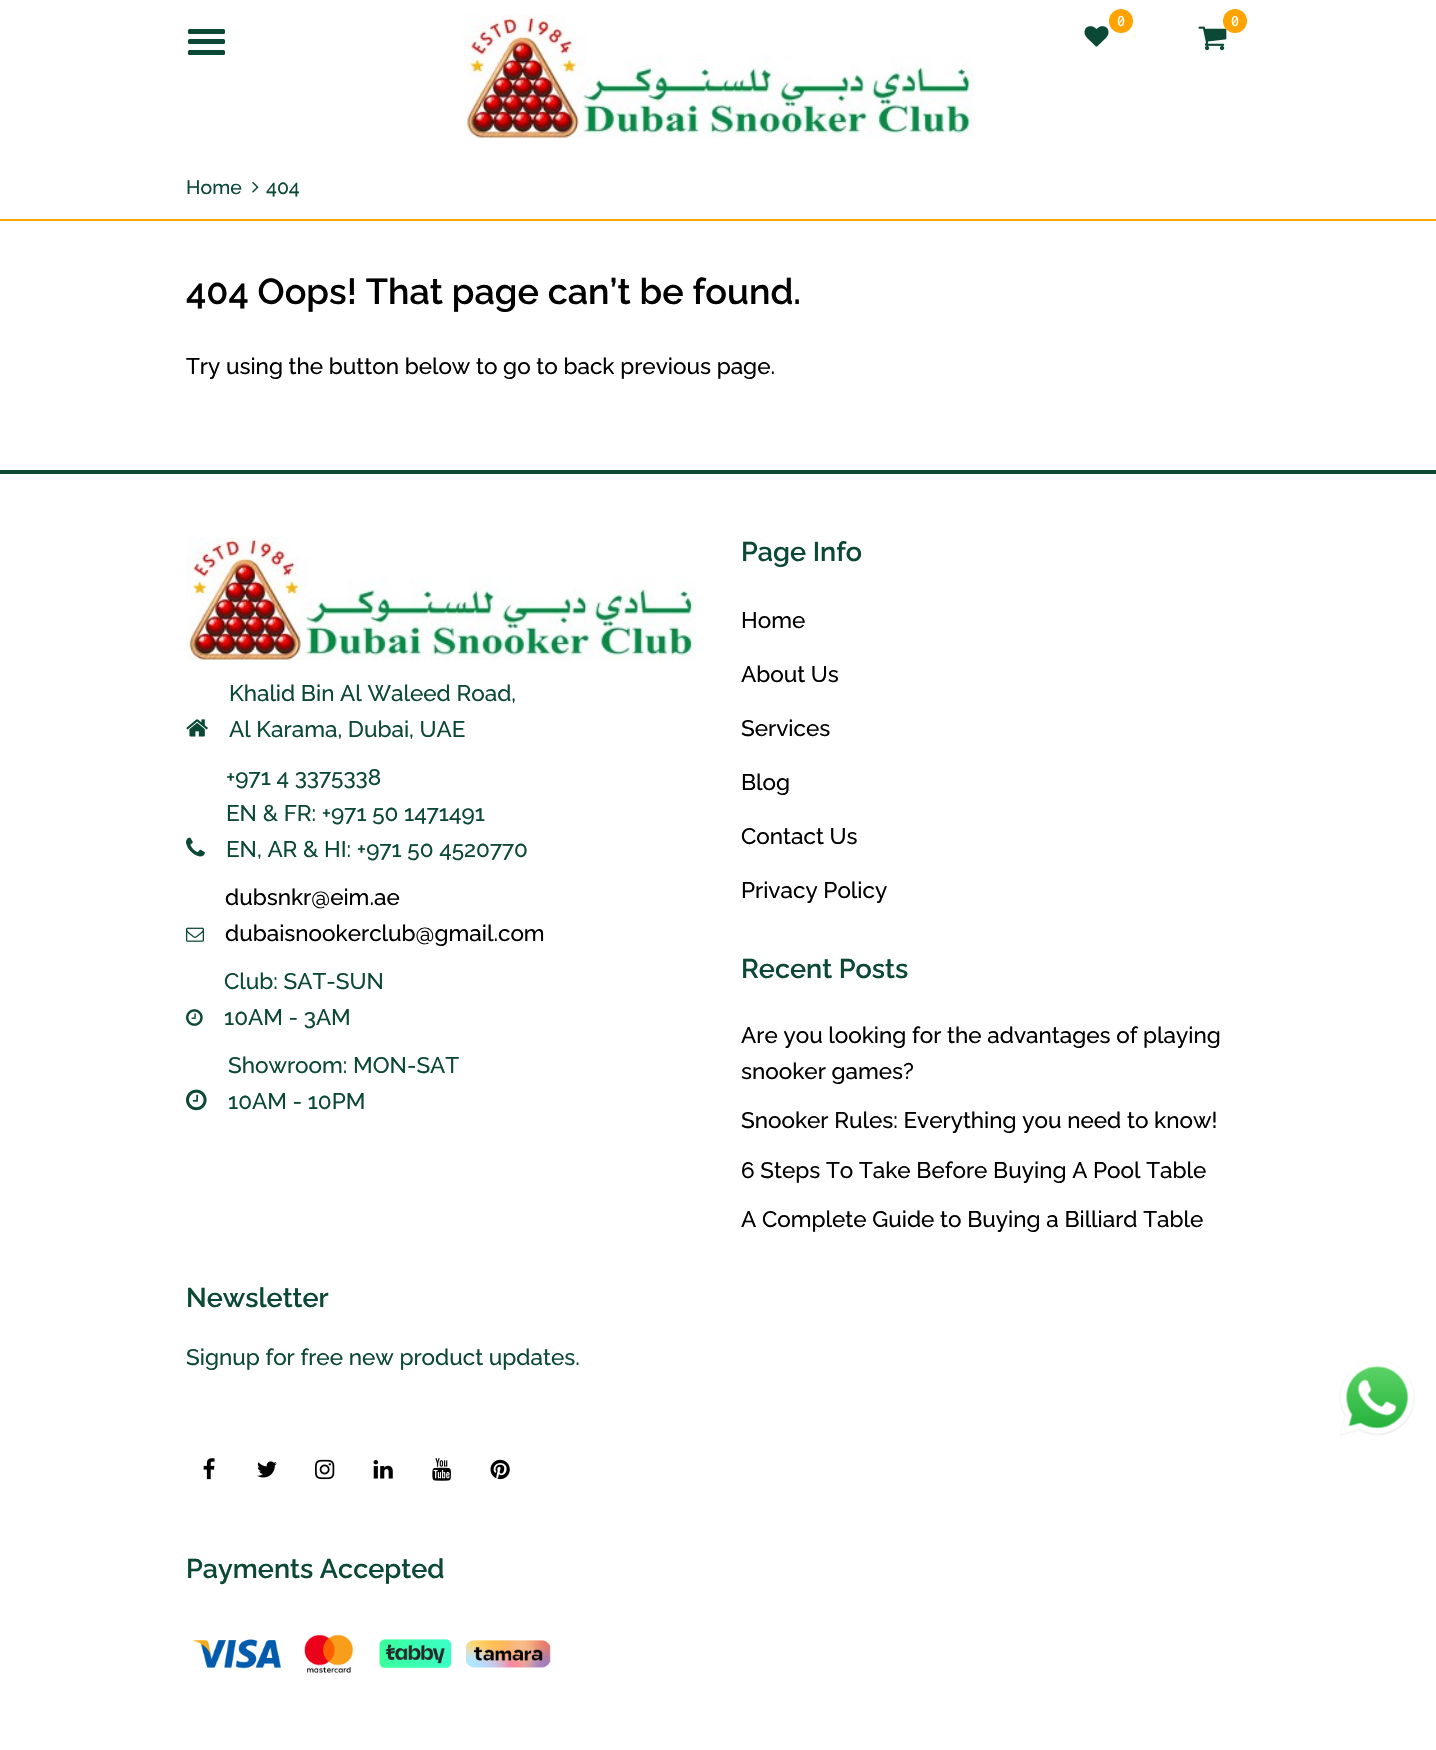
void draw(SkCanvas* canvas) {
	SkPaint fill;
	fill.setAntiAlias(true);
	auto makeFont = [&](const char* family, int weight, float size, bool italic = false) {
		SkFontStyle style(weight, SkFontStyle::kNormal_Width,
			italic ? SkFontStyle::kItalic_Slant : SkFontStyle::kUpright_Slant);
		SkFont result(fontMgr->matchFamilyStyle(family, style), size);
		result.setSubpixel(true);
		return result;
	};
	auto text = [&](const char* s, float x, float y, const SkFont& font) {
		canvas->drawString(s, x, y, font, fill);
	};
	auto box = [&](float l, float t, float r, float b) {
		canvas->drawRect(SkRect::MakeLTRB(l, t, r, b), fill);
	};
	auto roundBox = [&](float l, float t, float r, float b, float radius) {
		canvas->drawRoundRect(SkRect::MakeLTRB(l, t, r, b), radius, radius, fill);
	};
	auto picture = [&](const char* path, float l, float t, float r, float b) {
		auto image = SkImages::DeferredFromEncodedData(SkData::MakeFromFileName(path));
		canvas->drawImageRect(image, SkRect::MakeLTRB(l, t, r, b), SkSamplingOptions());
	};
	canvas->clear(0xFFFFFFFF);
	picture("image0.png", 463, 15, 974, 139);
	fill.setColor(0xFFFFA300);
	canvas->drawCircle(1121, 21, 12, fill);
	picture("image1.png", 1084, 26, 1109, 47);
	picture("image2.png", 1198, 26, 1227, 51);
	canvas->drawCircle(1235, 21, 12, fill);
	fill.setColor(0xFF0C4836);
	roundBox(188, 29, 225, 34, 1.5f);
	roundBox(188, 39, 225, 44, 1.5f);
	roundBox(188, 50, 225, 55, 1.5f);
	fill.setColor(0xFFFFA300);
	box(0, 219, 1436, 221);
	picture("image3.png", 252, 181, 259, 193);
	fill.setColor(0xFF0C4836);
	box(0, 470, 1436, 474);
	picture("image4.png", 186, 537, 696, 661);
	picture("image5.png", 186, 719, 208, 737);
	picture("image6.png", 186, 837, 205, 857);
	picture("image7.png", 186, 927, 204, 942);
	picture("image8.png", 186, 1009, 203, 1026);
	picture("image9.png", 186, 1089, 207, 1111);
	picture("image10.png", 203, 1458, 215, 1480);
	picture("image11.png", 257, 1461, 277, 1478);
	picture("image12.png", 315, 1459, 335, 1480);
	picture("image13.png", 373, 1460, 393, 1479);
	picture("image14.png", 432, 1458, 451, 1481);
	picture("image15.png", 490, 1459, 510, 1480);
	picture("image16.png", 193, 1634, 551, 1673);
	picture("image17.png", 1339, 1360, 1415, 1436);
	auto font1 = makeFont("Inconsolata", 500, 16);
	fill.setColor(0xFFFFFFFF);
	text("0", 1117, 26, font1);
	text("0", 1231, 26, font1);
	auto font2 = makeFont("Raleway", 500, 19.5f);
	fill.setColor(0xFF0C4836);
	text("Home", 186, 194, font2);
	text("404", 266, 194, font2);
	auto font3 = makeFont("Raleway", 600, 36);
	fill.setColor(0xFF000000);
	text("404 Oops! That page can’t be found.", 186, 304, font3);
	auto font4 = makeFont("Raleway", 500, 22.5f);
	text("Try using the button below to go to back previous page.", 186, 374, font4);
	fill.setColor(0xFF0C4836);
	text("Khalid Bin Al Waleed Road,", 229, 701, font4);
	text("Al Karama, Dubai, UAE", 229, 737, font4);
	text("+971 4 3375338", 226, 785, font4);
	text("EN & FR: +971 50 1471491", 226, 821, font4);
	text("EN, AR & HI: +971 50 4520770", 226, 857, font4);
	fill.setColor(0xFF000000);
	text("dubsnkr@eim.ae", 225, 905, font4);
	text("dubaisnookerclub@gmail.com", 225, 941, font4);
	fill.setColor(0xFF0C4836);
	text("Club: SAT-SUN", 224, 989, font4);
	text("10AM - 3AM", 224, 1025, font4);
	text("Showroom: MON-SAT", 228, 1073, font4);
	text("10AM - 10PM", 228, 1109, font4);
	auto font5 = makeFont("Raleway", 600, 27);
	text("Page Info", 741, 561, font5);
	fill.setColor(0xFF000000);
	text("Home", 741, 628, font4);
	text("About Us", 741, 682, font4);
	text("Services", 741, 736, font4);
	text("Blog", 741, 790, font4);
	text("Contact Us", 741, 844, font4);
	text("Privacy Policy", 741, 898, font4);
	fill.setColor(0xFF0C4836);
	text("Recent Posts", 741, 978, font5);
	fill.setColor(0xFF000000);
	text("Are you looking for the advantages of playing", 741, 1043, font4);
	text("snooker games?", 741, 1079, font4);
	text("Snooker Rules: Everything you need to know!", 741, 1128, font4);
	text("6 Steps To Take Before Buying A Pool Table", 741, 1178, font4);
	text("A Complete Guide to Buying a Billiard Table", 741, 1227, font4);
	fill.setColor(0xFF0C4836);
	text("Newsletter", 186, 1307, font5);
	text("Signup for free new product updates.", 186, 1365, font4);
	text("Payments Accepted", 186, 1578, font5);
}
